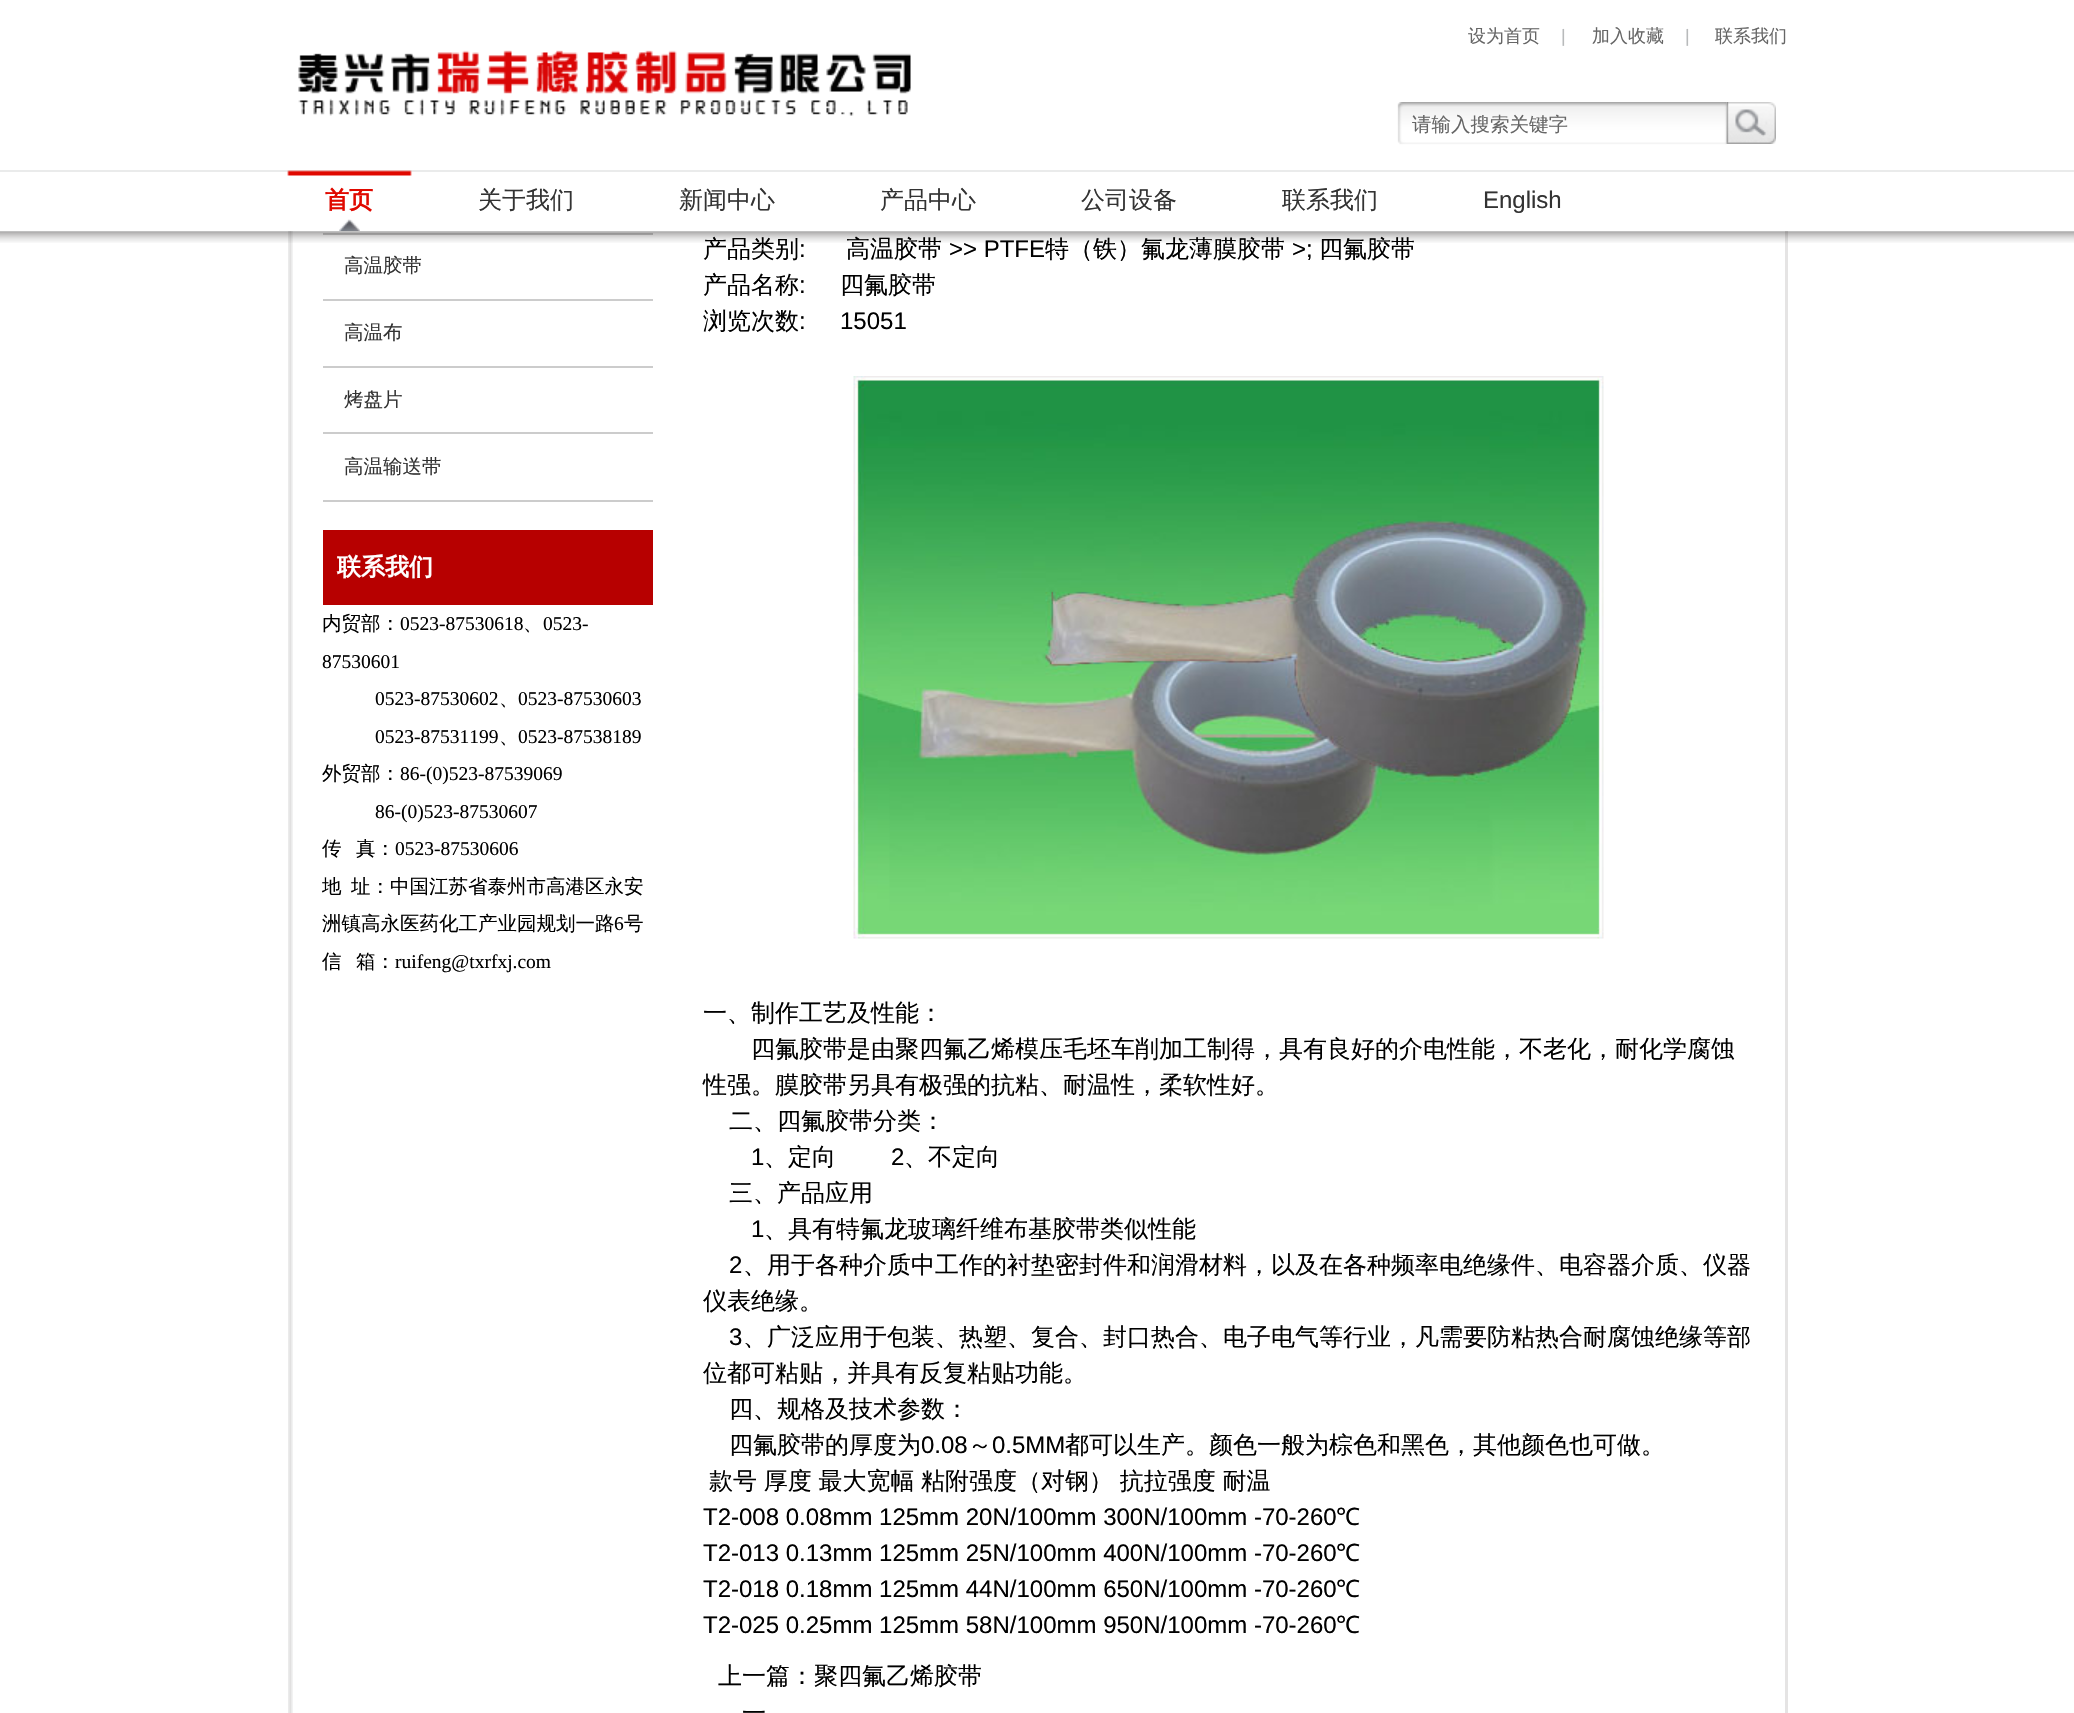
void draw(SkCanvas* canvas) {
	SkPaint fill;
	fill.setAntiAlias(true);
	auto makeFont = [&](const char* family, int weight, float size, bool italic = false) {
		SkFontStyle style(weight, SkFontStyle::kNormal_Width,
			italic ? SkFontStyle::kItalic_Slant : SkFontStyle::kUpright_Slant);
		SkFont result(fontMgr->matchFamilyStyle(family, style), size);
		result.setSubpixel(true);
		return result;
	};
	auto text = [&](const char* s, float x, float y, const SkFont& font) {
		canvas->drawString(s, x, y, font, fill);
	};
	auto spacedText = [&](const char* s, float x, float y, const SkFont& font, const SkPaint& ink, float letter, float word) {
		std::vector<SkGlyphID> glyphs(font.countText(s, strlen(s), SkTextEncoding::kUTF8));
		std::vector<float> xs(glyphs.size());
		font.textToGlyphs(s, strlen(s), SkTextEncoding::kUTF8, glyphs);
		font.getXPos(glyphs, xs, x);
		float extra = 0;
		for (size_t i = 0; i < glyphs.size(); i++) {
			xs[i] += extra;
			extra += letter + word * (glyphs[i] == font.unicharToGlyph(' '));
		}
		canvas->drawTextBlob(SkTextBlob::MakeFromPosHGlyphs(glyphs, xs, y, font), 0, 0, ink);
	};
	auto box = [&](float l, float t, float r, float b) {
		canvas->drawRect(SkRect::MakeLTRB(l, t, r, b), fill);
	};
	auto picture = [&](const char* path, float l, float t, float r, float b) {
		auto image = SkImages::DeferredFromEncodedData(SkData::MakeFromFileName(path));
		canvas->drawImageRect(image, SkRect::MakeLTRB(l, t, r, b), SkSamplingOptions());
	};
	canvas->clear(0xFFFFFFFF);
	picture("image0.png", 298, 50, 911, 116);
	picture("image1.png", 1397, 102, 1727, 145);
	picture("image2.png", 1726, 102, 1776, 144);
	fill.setColor(0xFFEAEBEB);
	box(0, 170, 2074, 172);
	picture("image3.png", 287, 170, 412, 176);
	picture("image4.png", 339, 219, 360, 231);
	picture("image6.png", 288, 231, 293, 1713);
	fill.setColor(0xFFE5E4E4);
	box(1785, 231, 1788, 1713);
	fill.setColor(0xFFCCCCCC);
	box(323, 233, 653, 235);
	box(323, 299, 653, 301);
	box(323, 366, 653, 368);
	box(323, 432, 653, 434);
	box(323, 500, 653, 502);
	fill.setColor(0xFFB70000);
	box(323, 530, 653, 605);
	picture("image7.png", 853, 376, 1604, 939);
	auto font1 = makeFont("WenQuanYi Zen Hei", 500, 18);
	fill.setColor(0xFF666666);
	text("设为首页", 1468, 42, font1);
	auto font2 = makeFont("Liberation Sans", 400, 18);
	fill.setColor(0xFFB8BABB);
	text("|", 1561, 42, font2);
	fill.setColor(0xFF666666);
	text("加入收藏", 1592, 42, font1);
	fill.setColor(0xFFB8BABB);
	text("|", 1685, 42, font2);
	fill.setColor(0xFF666666);
	text("联系我们", 1715, 42, font1);
	auto font3 = makeFont("WenQuanYi Zen Hei", 500, 19.5f);
	text("请输入搜索关键字", 1412, 131, font3);
	auto font4 = makeFont("WenQuanYi Zen Hei", 700, 24);
	fill.setColor(0xFFE00900);
	text("首页", 325, 208, font4);
	auto font5 = makeFont("WenQuanYi Zen Hei", 500, 24);
	fill.setColor(0xFF333333);
	text("关于我们", 478, 208, font5);
	text("新闻中心", 679, 208, font5);
	text("产品中心", 880, 208, font5);
	text("公司设备", 1081, 208, font5);
	text("联系我们", 1282, 208, font5);
	auto font6 = makeFont("Liberation Sans", 400, 24);
	text("English", 1483, 208, font6);
	text("高温胶带", 344, 272, font3);
	text("高温布", 344, 339, font3);
	text("烤盘片", 344, 406, font3);
	text("高温输送带", 344, 473, font3);
	fill.setColor(0xFFFFFFFF);
	text("联系我们", 337, 575, font4);
	fill.setColor(0xFF000000);
	text("内贸部：", 322, 630, font3);
	auto font7 = makeFont("Liberation Serif", 400, 19.5f);
	text("0523-87530618", 400, 630, font7);
	text("、", 523, 630, font3);
	text("0523-", 543, 630, font7);
	text("87530601", 322, 668, font7);
	text("0523-87530602", 375, 705, font7);
	text("、", 499, 705, font3);
	text("0523-87530603", 518, 705, font7);
	text("0523-87531199", 375, 743, font7);
	text("、", 499, 743, font3);
	text("0523-87538189", 518, 743, font7);
	text("外贸部：", 322, 780, font3);
	text("86-(0)523-87539069", 400, 780, font7);
	text("86-(0)523-87530607", 375, 818, font7);
	text("传", 322, 855, font3);
	text("真：", 356, 855, font3);
	text("0523-87530606", 395, 855, font7);
	text("地", 322, 893, font3);
	text("址：中国江苏省泰州市高港区永安", 351, 893, font3);
	text("洲镇高永医药化工产业园规划一路", 322, 930, font3);
	text("6", 614, 930, font7);
	text("号", 624, 930, font3);
	text("信", 322, 968, font3);
	text("箱：", 356, 968, font3);
	text("ruifeng@txrfxj.com", 395, 968, font7);
	text("产品类别", 703, 257, font5);
	text(":", 799, 257, font6);
	text("高温胶带", 846, 257, font5);
	text(">> PTFE", 949, 257, font6);
	text("特（铁）氟龙薄膜胶带", 1045, 257, font5);
	text(">;", 1292, 257, font6);
	text("四氟胶带", 1319, 257, font5);
	picture("image5.png", 0, 231, 2074, 243);
	text("产品名称", 703, 293, font5);
	text(":", 799, 293, font6);
	text("四氟胶带", 840, 293, font5);
	text("浏览次数", 703, 329, font5);
	text(":", 799, 329, font6);
	text("15051", 840, 329, font6);
	text("一、制作工艺及性能：", 703, 1021, font5);
	text("四氟胶带是由聚四氟乙烯模压毛坯车削加工制得，具有良好的介电性能，不老化，耐化学腐蚀", 751, 1057, font5);
	text("性强。膜胶带另具有极强的抗粘、耐温性，柔软性好。", 703, 1093, font5);
	text("二、四氟胶带分类：", 729, 1129, font5);
	text("1", 751, 1165, font6);
	text("、定向", 764, 1165, font5);
	text("2", 891, 1165, font6);
	text("、不定向", 904, 1165, font5);
	text("三、产品应用", 729, 1201, font5);
	text("1", 751, 1237, font6);
	text("、具有特氟龙玻璃纤维布基胶带类似性能", 764, 1237, font5);
	text("2", 729, 1273, font6);
	text("、用于各种介质中工作的衬垫密封件和润滑材料，以及在各种频率电绝缘件、电容器介质、仪器", 743, 1273, font5);
	text("仪表绝缘。", 703, 1309, font5);
	text("3", 729, 1345, font6);
	text("、广泛应用于包装、热塑、复合、封口热合、电子电气等行业，凡需要防粘热合耐腐蚀绝缘等部", 743, 1345, font5);
	text("位都可粘贴，并具有反复粘贴功能。", 703, 1381, font5);
	text("四、规格及技术参数：", 729, 1417, font5);
	text("四氟胶带的厚度为", 729, 1453, font5);
	text("0.08", 921, 1453, font6);
	text("～", 968, 1453, font5);
	text("0.5MM", 992, 1453, font6);
	text("都可以生产。颜色一般为棕色和黑色，其他颜色也可做。", 1065, 1453, font5);
	spacedText("款号 厚度 最大宽幅 粘附强度（对钢） 抗拉强度 耐温", 709, 1489, font5, fill, 0, -0.5f);
	text("T2-008 0.08mm 125mm 20N/100mm 300N/100mm -70-260", 703, 1525, font6);
	auto font8 = makeFont("Noto Sans", 400, 24);
	text("℃", 1336, 1525, font8);
	text("T2-013 0.13mm 125mm 25N/100mm 400N/100mm -70-260", 703, 1561, font6);
	text("℃", 1336, 1561, font8);
	text("T2-018 0.18mm 125mm 44N/100mm 650N/100mm -70-260", 703, 1597, font6);
	text("℃", 1336, 1597, font8);
	text("T2-025 0.25mm 125mm 58N/100mm 950N/100mm -70-260", 703, 1633, font6);
	text("℃", 1336, 1633, font8);
	text("上一篇：聚四氟乙烯胶带", 718, 1684, font5);
	text("一", 742, 1721, font5);
}
